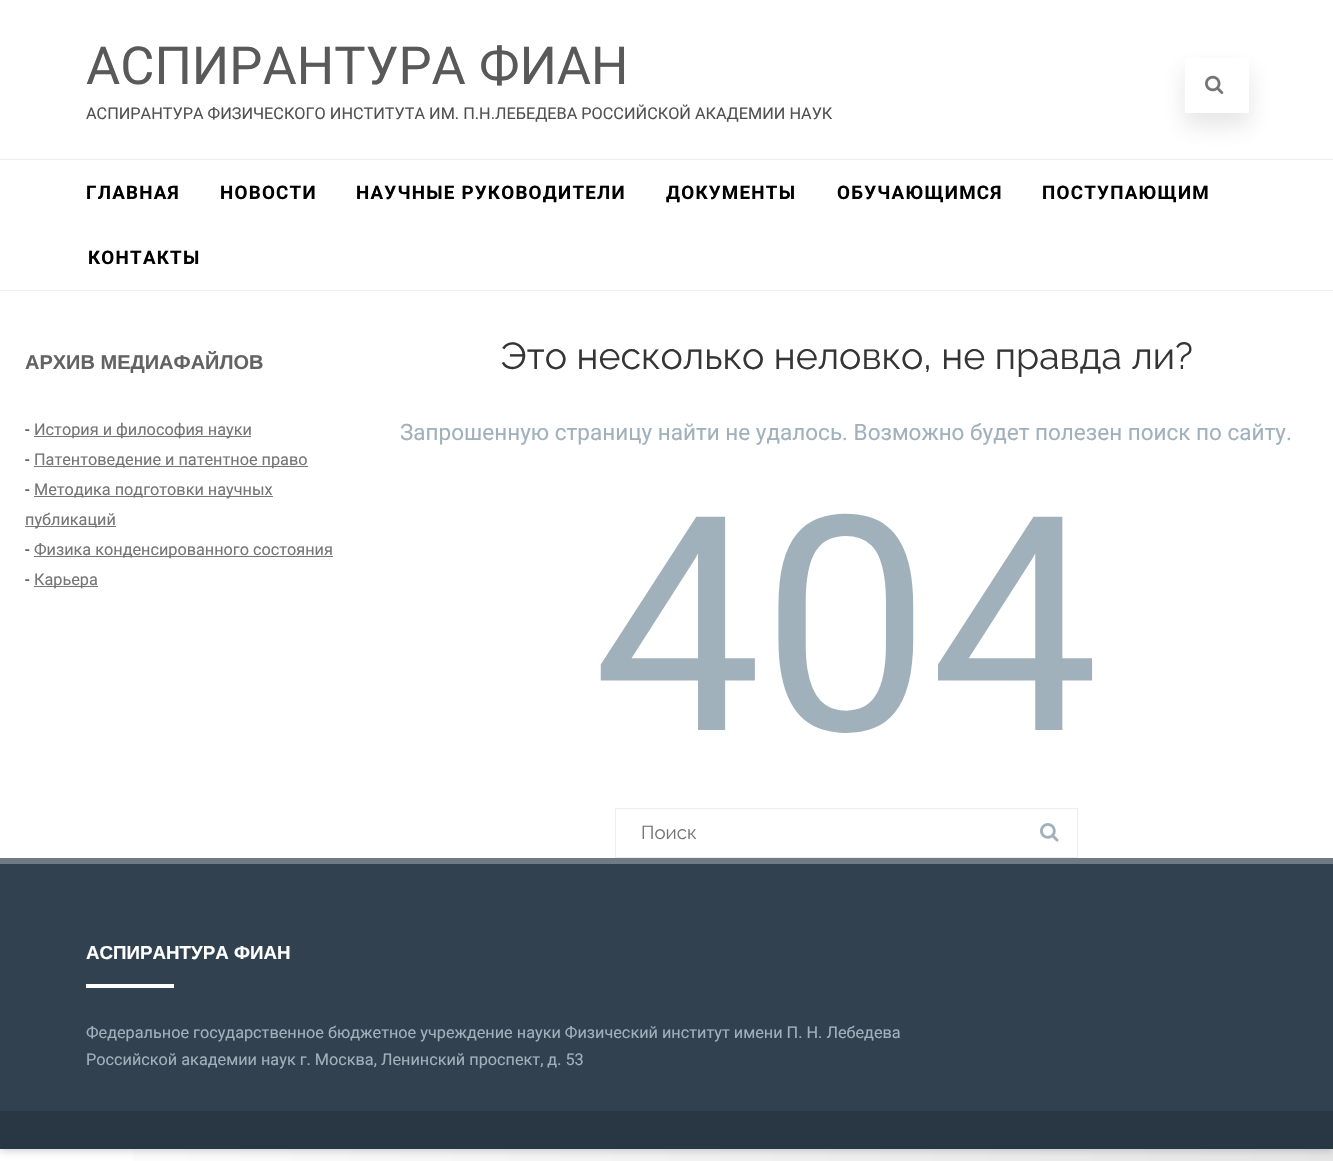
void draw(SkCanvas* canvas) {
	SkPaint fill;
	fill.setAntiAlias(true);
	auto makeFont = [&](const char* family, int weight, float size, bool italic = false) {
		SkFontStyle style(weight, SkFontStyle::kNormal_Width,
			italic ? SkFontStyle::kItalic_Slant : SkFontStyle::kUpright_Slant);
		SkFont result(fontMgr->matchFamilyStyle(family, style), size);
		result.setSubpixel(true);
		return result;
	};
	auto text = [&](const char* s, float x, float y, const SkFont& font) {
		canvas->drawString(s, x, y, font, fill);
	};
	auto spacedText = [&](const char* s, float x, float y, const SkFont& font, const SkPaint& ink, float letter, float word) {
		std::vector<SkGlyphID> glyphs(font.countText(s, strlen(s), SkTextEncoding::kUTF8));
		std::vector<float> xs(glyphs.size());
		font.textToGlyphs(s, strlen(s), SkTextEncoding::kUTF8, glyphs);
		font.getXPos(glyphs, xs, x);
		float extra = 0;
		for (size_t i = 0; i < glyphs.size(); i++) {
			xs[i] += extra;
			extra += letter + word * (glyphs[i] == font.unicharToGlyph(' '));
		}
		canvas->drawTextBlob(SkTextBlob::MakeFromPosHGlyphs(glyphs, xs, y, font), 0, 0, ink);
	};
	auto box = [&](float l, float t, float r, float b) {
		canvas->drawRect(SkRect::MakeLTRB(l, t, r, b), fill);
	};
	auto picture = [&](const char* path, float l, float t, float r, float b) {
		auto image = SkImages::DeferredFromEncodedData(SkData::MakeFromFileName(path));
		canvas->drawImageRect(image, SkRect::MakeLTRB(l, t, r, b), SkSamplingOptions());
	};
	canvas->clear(0xFFFFFFFF);
	{
		const SkColor colors[] = {0xFFFFFFFF, 0xFFE6E6E6};
		const float stops[] = {0, 1};
		const SkPoint ends[] = {{0, 574}, {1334, 574}};
		fill.setShader(SkGradientShader::MakeLinear(ends, colors, stops, 2, SkTileMode::kClamp));
		fill.setAlpha(255);
	}
	box(133, 1149, 1333, 1161);
	fill.setShader(nullptr);
	fill.setColor(0x4D646464);
	fill.setMaskFilter(SkMaskFilter::MakeBlur(kNormal_SkBlurStyle, 4));
	canvas->drawRect(SkRect::MakeLTRB(0, 3, 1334, 1151), fill);
	fill.setMaskFilter(nullptr);
	fill.setColor(0xFFFFFFFF);
	box(0, 0, 1333, 858);
	fill.setColor(0xFFEEEEEE);
	box(0, 159, 1333, 160);
	canvas->save();
	canvas->clipPath(SkPathBuilder(SkPathFillType::kEvenOdd).moveTo(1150, 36).lineTo(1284, 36).lineTo(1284, 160).lineTo(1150, 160).close().moveTo(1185, 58).lineTo(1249, 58).lineTo(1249, 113).lineTo(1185, 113).close().detach(), true);
	fill.setColor(0x21404040);
	fill.setMaskFilter(SkMaskFilter::MakeBlur(kNormal_SkBlurStyle, 11));
	canvas->drawRect(SkRect::MakeLTRB(1184, 70, 1250, 126), fill);
	fill.setMaskFilter(nullptr);
	canvas->restore();
	picture("image0.png", 1205, 75, 1224, 94);
	fill.setColor(0xFFEEEEEE);
	box(0, 290, 1333, 291);
	fill.setColor(0xFF757575);
	box(34, 436, 251, 437);
	box(34, 466, 308, 467);
	box(34, 496, 273, 497);
	box(25, 526, 116, 527);
	box(34, 556, 333, 557);
	box(34, 586, 98, 587);
	fill.setStyle(SkPaint::kStroke_Style);
	fill.setStrokeWidth(1);
	fill.setColor(0xFFECEEF0);
	canvas->drawRect(SkRect::MakeLTRB(615.5f, 808.5f, 1077.5f, 857.5f), fill);
	picture("image1.png", 1040, 823, 1059, 842);
	fill.setStyle(SkPaint::kFill_Style);
	fill.setColor(0xFF314150);
	box(0, 864, 1333, 1111);
	fill.setColor(0xFF6F7A85);
	box(0, 858, 1333, 864);
	fill.setColor(0xFFFFFFFF);
	box(86, 984, 174, 988);
	fill.setColor(0xFF293744);
	box(0, 1111, 1333, 1149);
	auto font1 = makeFont("Roboto", 400, 52.5f);
	fill.setColor(0xFF595959);
	text("АСПИРАНТУРА ФИАН", 86, 84, font1);
	auto font2 = makeFont("Roboto", 400, 16.25f);
	fill.setColor(0xFF515151);
	text("АСПИРАНТУРА ФИЗИЧЕСКОГО ИНСТИТУТА ИМ. П.Н.ЛЕБЕДЕВА РОССИЙСКОЙ АКАДЕМИИ НАУК", 86, 119, font2);
	auto font3 = makeFont("Roboto", 700, 18.75f);
	fill.setColor(0xFF000000);
	spacedText("ГЛАВНАЯ", 86, 199, font3, fill, 1.25f, 0);
	spacedText("НОВОСТИ", 220, 199, font3, fill, 1.25f, 0);
	spacedText("НАУЧНЫЕ РУКОВОДИТЕЛИ", 356, 199, font3, fill, 1.25f, 0);
	spacedText("ДОКУМЕНТЫ", 666, 199, font3, fill, 1.25f, 0);
	spacedText("ОБУЧАЮЩИМСЯ", 837, 199, font3, fill, 1.25f, 0);
	spacedText("ПОСТУПАЮЩИМ", 1042, 199, font3, fill, 1.25f, 0);
	spacedText("КОНТАКТЫ", 88, 264, font3, fill, 1.25f, 0);
	auto font4 = makeFont("Liberation Sans", 700, 20);
	fill.setColor(0xFF636363);
	text("АРХИВ МЕДИАФАЙЛОВ", 25, 369, font4);
	fill.setColor(0xFF353535);
	text("-", 25, 435, font2);
	fill.setColor(0xFF757575);
	text("История и философия науки", 34, 435, font2);
	fill.setColor(0xFF353535);
	text("-", 25, 465, font2);
	fill.setColor(0xFF757575);
	text("Патентоведение и патентное право", 34, 465, font2);
	fill.setColor(0xFF353535);
	text("-", 25, 495, font2);
	fill.setColor(0xFF757575);
	text("Методика подготовки научных", 34, 495, font2);
	text("публикаций", 25, 525, font2);
	fill.setColor(0xFF353535);
	text("-", 25, 555, font2);
	fill.setColor(0xFF757575);
	text("Физика конденсированного состояния", 34, 555, font2);
	fill.setColor(0xFF353535);
	text("-", 25, 585, font2);
	fill.setColor(0xFF757575);
	text("Карьера", 34, 585, font2);
	auto font5 = makeFont("Raleway", 400, 37.5f);
	fill.setColor(0xFF353535);
	text("Это несколько неловко, не правда ли?", 500, 369, font5);
	auto font6 = makeFont("Roboto", 400, 22.5f);
	fill.setColor(0xFFA1B1BC);
	text("Запрошенную страницу найти не удалось. Возможно будет полезен поиск по сайту.", 400, 440, font6);
	auto font7 = makeFont("Roboto", 400, 300);
	text("404", 593, 730, font7);
	auto font8 = makeFont("Raleway", 400, 18.75f);
	fill.setColor(0xFF757575);
	text("Поиск", 641, 839, font8);
	auto font9 = makeFont("Liberation Sans", 700, 18.75f);
	fill.setColor(0xFFFFFFFF);
	text("АСПИРАНТУРА ФИАН", 86, 959, font9);
	fill.setColor(0xFFA1B1BC);
	text("Федеральное государственное бюджетное учреждение науки Физический институт имени П. Н. Лебедева", 86, 1038, font2);
	text("Российской академии наук г. Москва, Ленинский проспект, д. 53", 86, 1065, font2);
}
